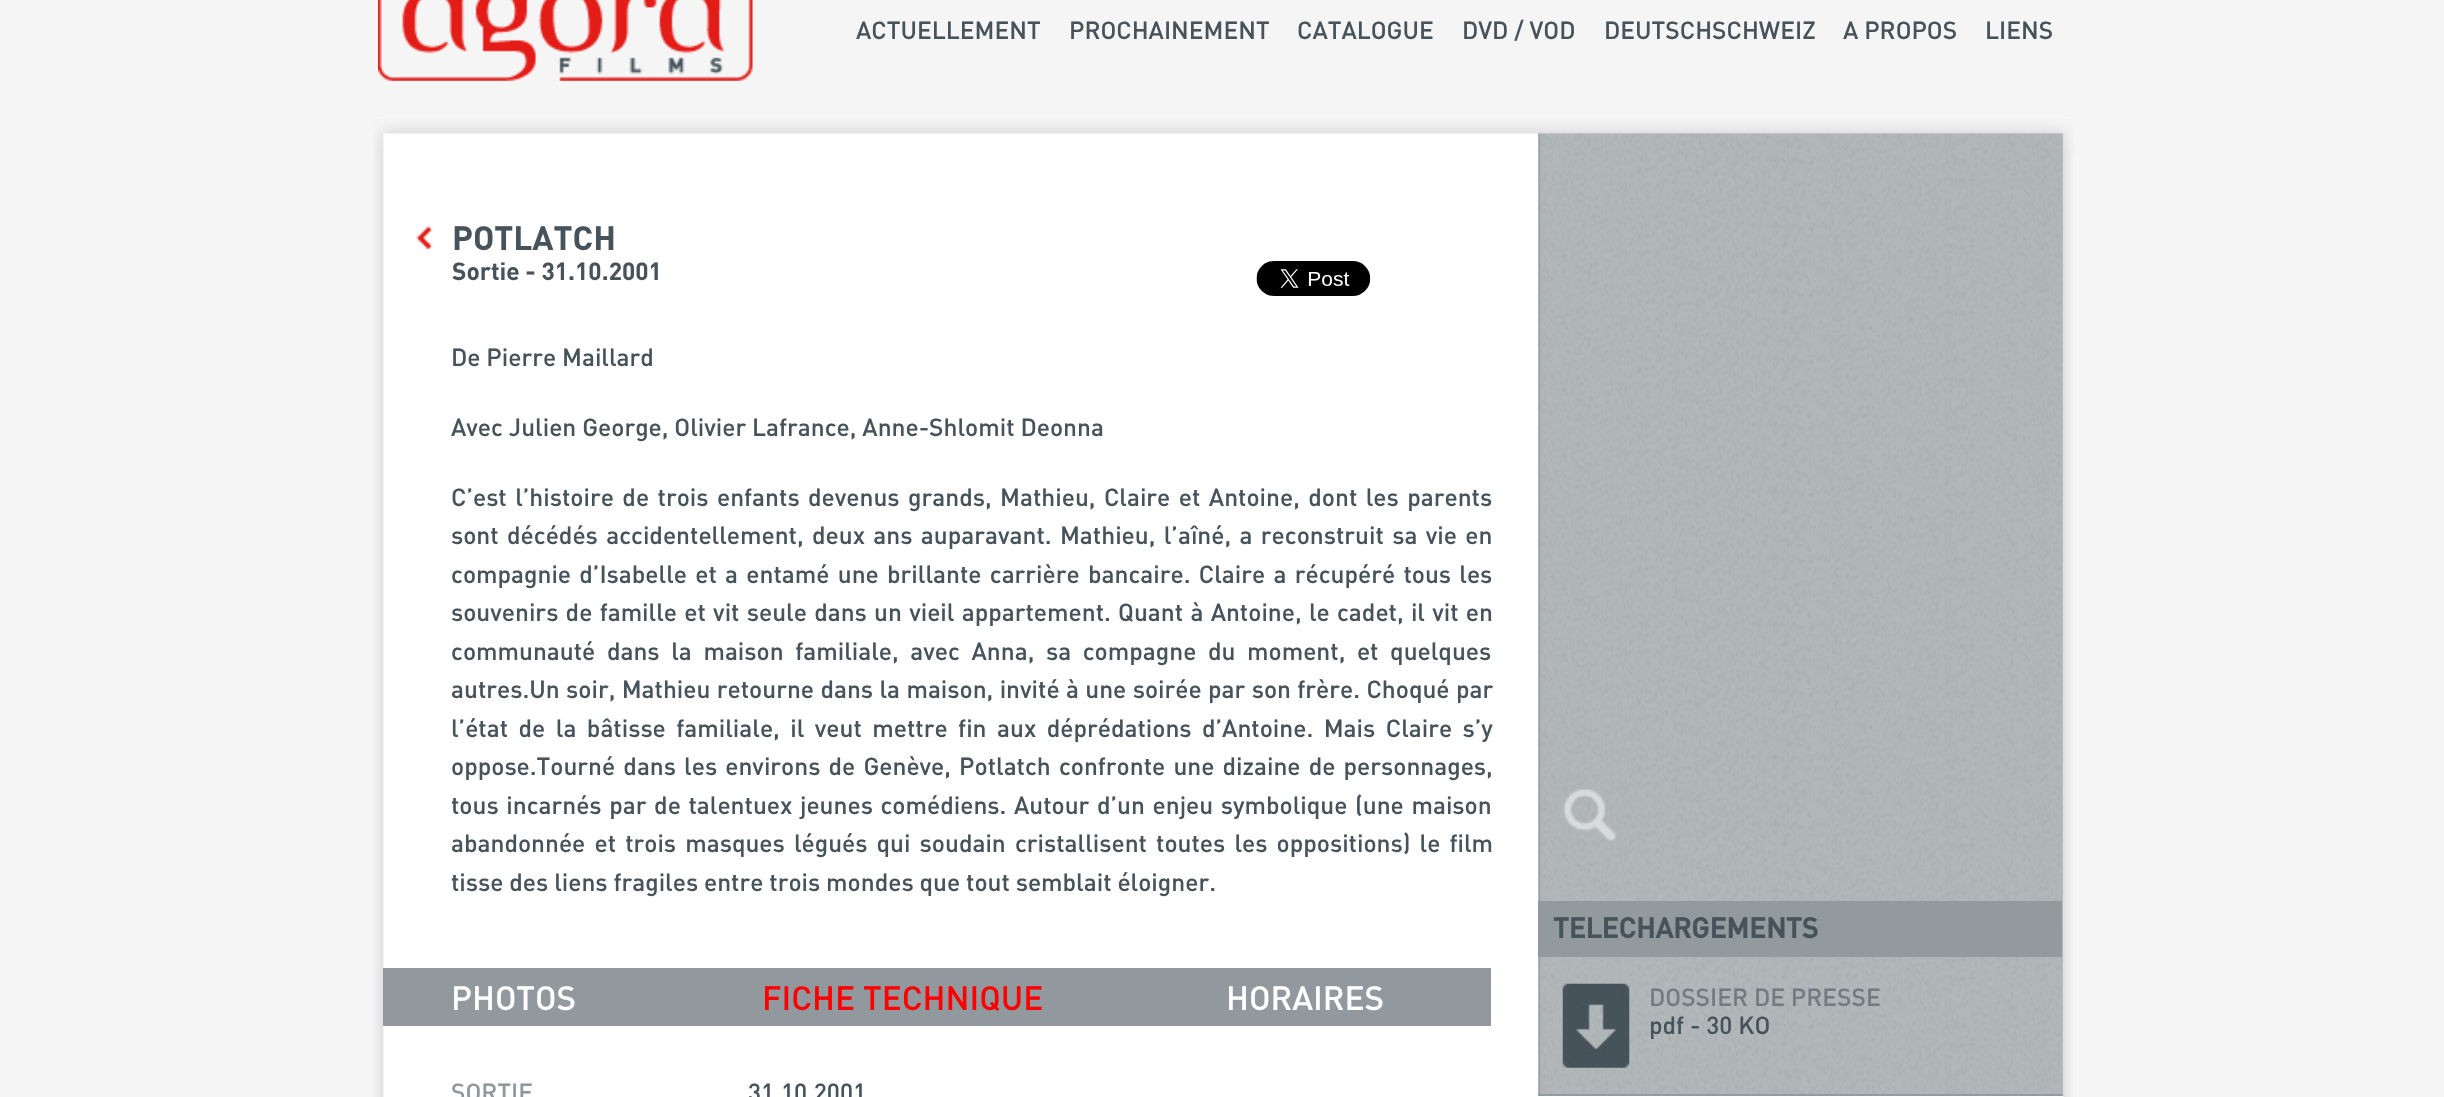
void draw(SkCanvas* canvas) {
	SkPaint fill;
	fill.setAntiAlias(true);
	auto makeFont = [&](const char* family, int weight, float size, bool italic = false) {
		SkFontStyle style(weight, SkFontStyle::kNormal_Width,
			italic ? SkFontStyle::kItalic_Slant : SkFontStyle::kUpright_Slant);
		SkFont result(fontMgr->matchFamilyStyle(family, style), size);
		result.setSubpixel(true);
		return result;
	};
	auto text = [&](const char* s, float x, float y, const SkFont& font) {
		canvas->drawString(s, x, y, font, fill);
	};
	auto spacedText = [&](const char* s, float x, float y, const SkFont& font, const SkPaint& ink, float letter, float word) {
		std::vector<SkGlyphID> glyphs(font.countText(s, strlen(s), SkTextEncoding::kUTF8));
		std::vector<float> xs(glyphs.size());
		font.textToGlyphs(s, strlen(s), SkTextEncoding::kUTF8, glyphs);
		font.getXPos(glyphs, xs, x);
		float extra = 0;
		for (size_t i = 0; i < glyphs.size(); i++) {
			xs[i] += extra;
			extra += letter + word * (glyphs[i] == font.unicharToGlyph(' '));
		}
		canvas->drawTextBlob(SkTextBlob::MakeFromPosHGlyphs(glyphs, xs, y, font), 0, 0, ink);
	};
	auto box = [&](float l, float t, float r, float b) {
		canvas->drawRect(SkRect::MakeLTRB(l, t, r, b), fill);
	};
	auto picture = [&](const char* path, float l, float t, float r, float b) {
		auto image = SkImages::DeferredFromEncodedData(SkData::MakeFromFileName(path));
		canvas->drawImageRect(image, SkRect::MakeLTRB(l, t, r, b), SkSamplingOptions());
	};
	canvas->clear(0xFFF5F5F5);
	picture("image0.png", 378, 0, 753, 81);
	picture("image1.png", 373, 115, 2073, 1097);
	picture("image2.png", 373, 116, 2074, 156);
	picture("image3.png", 416, 226, 433, 249);
	picture("image4.png", 1256, 261, 1371, 296);
	fill.setColor(0xFF91999E);
	box(383, 968, 1491, 1026);
	picture("image5.png", 1538, 133, 2064, 1096);
	fill.setColor(0xFF929CA0);
	box(1538, 1094, 2063, 1096);
	picture("image6.png", 1564, 789, 1616, 841);
	fill.setColor(0xFF929A9E);
	box(1538, 901, 2062, 957);
	picture("image7.png", 1562, 983, 1630, 1068);
	auto font1 = makeFont("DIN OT", 500, 24.5f);
	fill.setColor(0xFF46535B);
	text("ACTUELLEMENT", 856, 39, font1);
	text("PROCHAINEMENT", 1069, 39, font1);
	text("CATALOGUE", 1297, 39, font1);
	text("DVD / VOD", 1462, 39, font1);
	text("DEUTSCHSCHWEIZ", 1604, 39, font1);
	text("A PROPOS", 1843, 39, font1);
	text("LIENS", 1985, 39, font1);
	auto font2 = makeFont("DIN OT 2", 700, 33.25f);
	text("POTLATCH", 452, 250, font2);
	auto font3 = makeFont("DIN OT 2", 700, 24.5f);
	text("Sortie - 31.10.2001", 452, 280, font3);
	text("De Pierre Maillard", 451, 366, font1);
	text("Avec Julien George, Olivier Lafrance, Anne-Shlomit Deonna", 451, 436, font1);
	spacedText("C’est l’histoire de trois enfants devenus grands, Mathieu, Claire et Antoine, dont les parents", 451, 506, font1, fill, 0, 2.6f);
	spacedText("sont décédés accidentellement, deux ans auparavant. Mathieu, l’aîné, a reconstruit sa vie en", 451, 544, font1, fill, 0, 2.5f);
	spacedText("compagnie d’Isabelle et a entamé une brillante carrière bancaire. Claire a récupéré tous les", 451, 583, font1, fill, 0, 2.4f);
	spacedText("souvenirs de famille et vit seule dans un vieil appartement. Quant à Antoine, le cadet, il vit en", 451, 621, font1, fill, 0, 1.4f);
	spacedText("communauté dans la maison familiale, avec Anna, sa compagne du moment, et quelques", 451, 660, font1, fill, 0, 5.75f);
	spacedText("autres.Un soir, Mathieu retourne dans la maison, invité à une soirée par son frère. Choqué par", 451, 698, font1, fill, 0, 0.5f);
	spacedText("l’état de la bâtisse familiale, il veut mettre fin aux déprédations d’Antoine. Mais Claire s’y", 451, 737, font1, fill, 0, 4.6f);
	spacedText("oppose.Tourné dans les environs de Genève, Potlatch confronte une dizaine de personnages,", 451, 775, font1, fill, 0, 2.25f);
	spacedText("tous incarnés par de talentuex jeunes comédiens. Autour d’un enjeu symbolique (une maison", 451, 814, font1, fill, 0, 1.75f);
	spacedText("abandonnée et trois masques légués qui soudain cristallisent toutes les oppositions) le film", 451, 852, font1, fill, 0, 3.25f);
	text("tisse des liens fragiles entre trois mondes que tout semblait éloigner.", 451, 891, font1);
	auto font4 = makeFont("DIN OT", 500, 33.25f);
	fill.setColor(0xFFFFFFFF);
	text("PHOTOS", 451, 1010, font4);
	fill.setColor(0xFFFF0000);
	text("FICHE TECHNIQUE", 762, 1010, font4);
	fill.setColor(0xFFFFFFFF);
	text("HORAIRES", 1226, 1010, font4);
	fill.setColor(0xFF90989D);
	text("SORTIE", 451, 1101, font1);
	fill.setColor(0xFF46535B);
	text("31.10.2001", 748, 1101, font1);
	auto font5 = makeFont("DIN OT", 700, 28);
	text("TELECHARGEMENTS", 1553, 938, font5);
	fill.setColor(0xFF717B81);
	text("DOSSIER DE PRESSE", 1649, 1006, font1);
	fill.setColor(0xFF46535B);
	text("pdf - 30 KO", 1649, 1034, font1);
}
